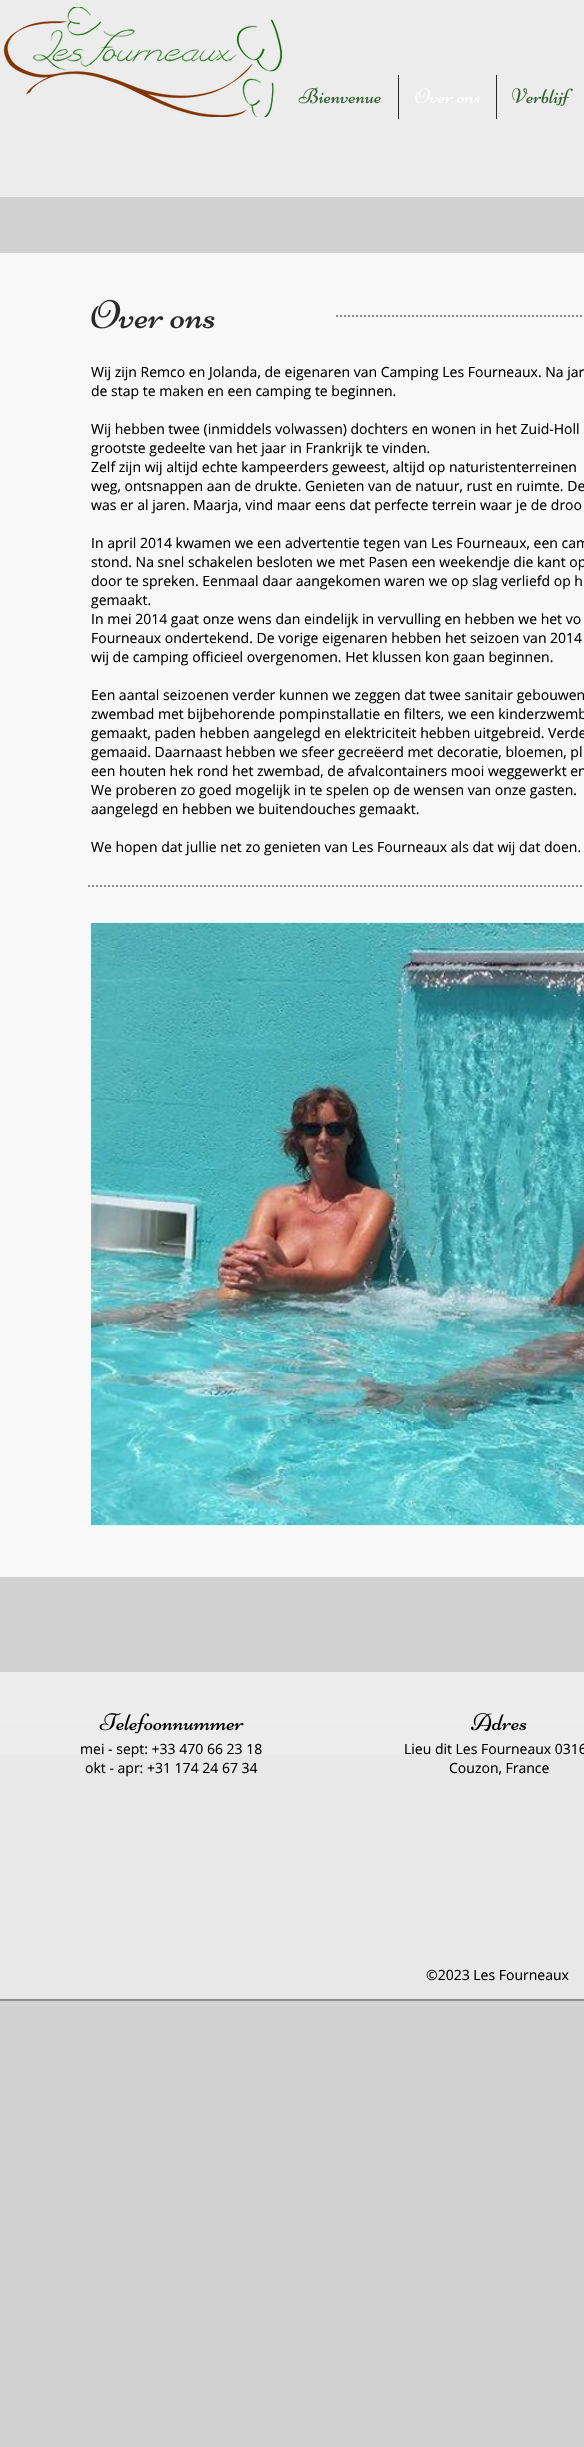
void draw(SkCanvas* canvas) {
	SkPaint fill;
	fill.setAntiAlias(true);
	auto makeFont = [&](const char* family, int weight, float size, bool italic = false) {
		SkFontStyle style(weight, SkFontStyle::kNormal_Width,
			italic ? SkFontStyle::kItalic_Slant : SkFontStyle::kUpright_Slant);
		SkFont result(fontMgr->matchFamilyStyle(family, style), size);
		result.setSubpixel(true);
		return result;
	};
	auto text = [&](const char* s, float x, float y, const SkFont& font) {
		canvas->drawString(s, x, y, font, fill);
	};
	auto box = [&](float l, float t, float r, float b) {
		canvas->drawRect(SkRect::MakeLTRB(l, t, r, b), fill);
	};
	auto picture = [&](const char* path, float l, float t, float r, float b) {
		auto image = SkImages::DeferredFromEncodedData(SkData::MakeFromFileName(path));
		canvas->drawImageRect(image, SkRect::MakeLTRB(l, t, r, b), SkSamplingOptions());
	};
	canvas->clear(0xFFD1D1D1);
	fill.setColor(0xFFECECEC);
	box(0, 0, 584, 197);
	picture("image0.png", 3, 7, 282, 117);
	picture("image1.png", 298, 87, 381, 104);
	fill.setColor(0xFF2A2A2A);
	box(398, 75, 399, 119);
	picture("image2.png", 415, 88, 480, 103);
	box(496, 75, 497, 119);
	picture("image3.png", 512, 88, 573, 106);
	fill.setColor(0xFFF8F8F8);
	box(0, 253, 584, 1577);
	picture("image4.png", 91, 299, 215, 329);
	fill.setStyle(SkPaint::kStroke_Style);
	fill.setStrokeWidth(2);
	fill.setColor(0xFF8F8E8E);
	fill.setPathEffect(SkDashPathEffect::Make({{2, 2}}, 0));
	canvas->drawPath(SkPathBuilder().moveTo(336, 316).lineTo(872, 316).detach(), fill);
	fill.setPathEffect(nullptr);
	fill.setPathEffect(SkDashPathEffect::Make({{2, 2}}, 0));
	canvas->drawPath(SkPathBuilder().moveTo(88, 886).lineTo(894, 886).detach(), fill);
	fill.setPathEffect(nullptr);
	picture("image5.png", 91, 923, 584, 1525);
	fill.setStyle(SkPaint::kFill_Style);
	fill.setColor(0xFFE8E8E8);
	box(0, 1672, 584, 1999);
	fill.setColor(0xFF8F8E8E);
	box(0, 1999, 584, 2001);
	picture("image6.png", 0, 1672, 584, 1755);
	picture("image7.png", 99, 1713, 244, 1734);
	picture("image8.png", 470, 1713, 527, 1731);
	auto font1 = makeFont("Open Sans", 400, 14);
	fill.setColor(0xFF000000);
	text("Wij zijn Remco en Jolanda, de eigenaren van Camping Les Fourneaux. Na jar", 91, 377, font1);
	text("de stap te maken en een camping te beginnen.", 91, 396, font1);
	text("Wij hebben twee (inmiddels volwassen) dochters en wonen in het Zuid-Holl", 91, 434, font1);
	text("grootste gedeelte van het jaar in Frankrijk te vinden.", 91, 453, font1);
	text("Zelf zijn wij altijd echte kampeerders geweest, altijd op naturistenterreinen", 91, 472, font1);
	text("weg, ontsnappen aan de drukte. Genieten van de natuur, rust en ruimte. De", 91, 491, font1);
	text("was er al jaren. Maarja, vind maar eens dat perfecte terrein waar je de droo", 91, 510, font1);
	text("In april 2014 kwamen we een advertentie tegen van Les Fourneaux, een cam", 91, 548, font1);
	text("stond. Na snel schakelen besloten we met Pasen een weekendje die kant op", 91, 567, font1);
	text("door te spreken. Eenmaal daar aangekomen waren we op slag verliefd op h", 91, 586, font1);
	text("gemaakt.", 91, 605, font1);
	text("In mei 2014 gaat onze wens dan eindelijk in vervulling en hebben we het vo", 91, 624, font1);
	text("Fourneaux ondertekend. De vorige eigenaren hebben het seizoen van 2014", 91, 643, font1);
	text("wij de camping officieel overgenomen. Het klussen kon gaan beginnen.", 91, 662, font1);
	text("Een aantal seizoenen verder kunnen we zeggen dat twee sanitair gebouwen", 91, 700, font1);
	text("zwembad met bijbehorende pompinstallatie en filters, we een kinderzwemb", 91, 719, font1);
	text("gemaakt, paden hebben aangelegd en elektriciteit hebben uitgebreid. Verde", 91, 738, font1);
	text("gemaaid. Daarnaast hebben we sfeer gecreëerd met decoratie, bloemen, pl", 91, 757, font1);
	text("een houten hek rond het zwembad, de afvalcontainers mooi weggewerkt en", 91, 776, font1);
	text("We proberen zo goed mogelijk in te spelen op de wensen van onze gasten.", 91, 795, font1);
	text("aangelegd en hebben we buitendouches gemaakt.", 91, 814, font1);
	text("We hopen dat jullie net zo genieten van Les Fourneaux als dat wij dat doen.", 91, 852, font1);
	text("mei - sept: +33 470 66 23 18", 80, 1754, font1);
	text("okt - apr: +31 174 24 67 34", 85, 1773, font1);
	text("Lieu dit Les Fourneaux 0316", 404, 1754, font1);
	text("Couzon, France", 449, 1773, font1);
	text("©2023 Les Fourneaux", 426, 1980, font1);
}
